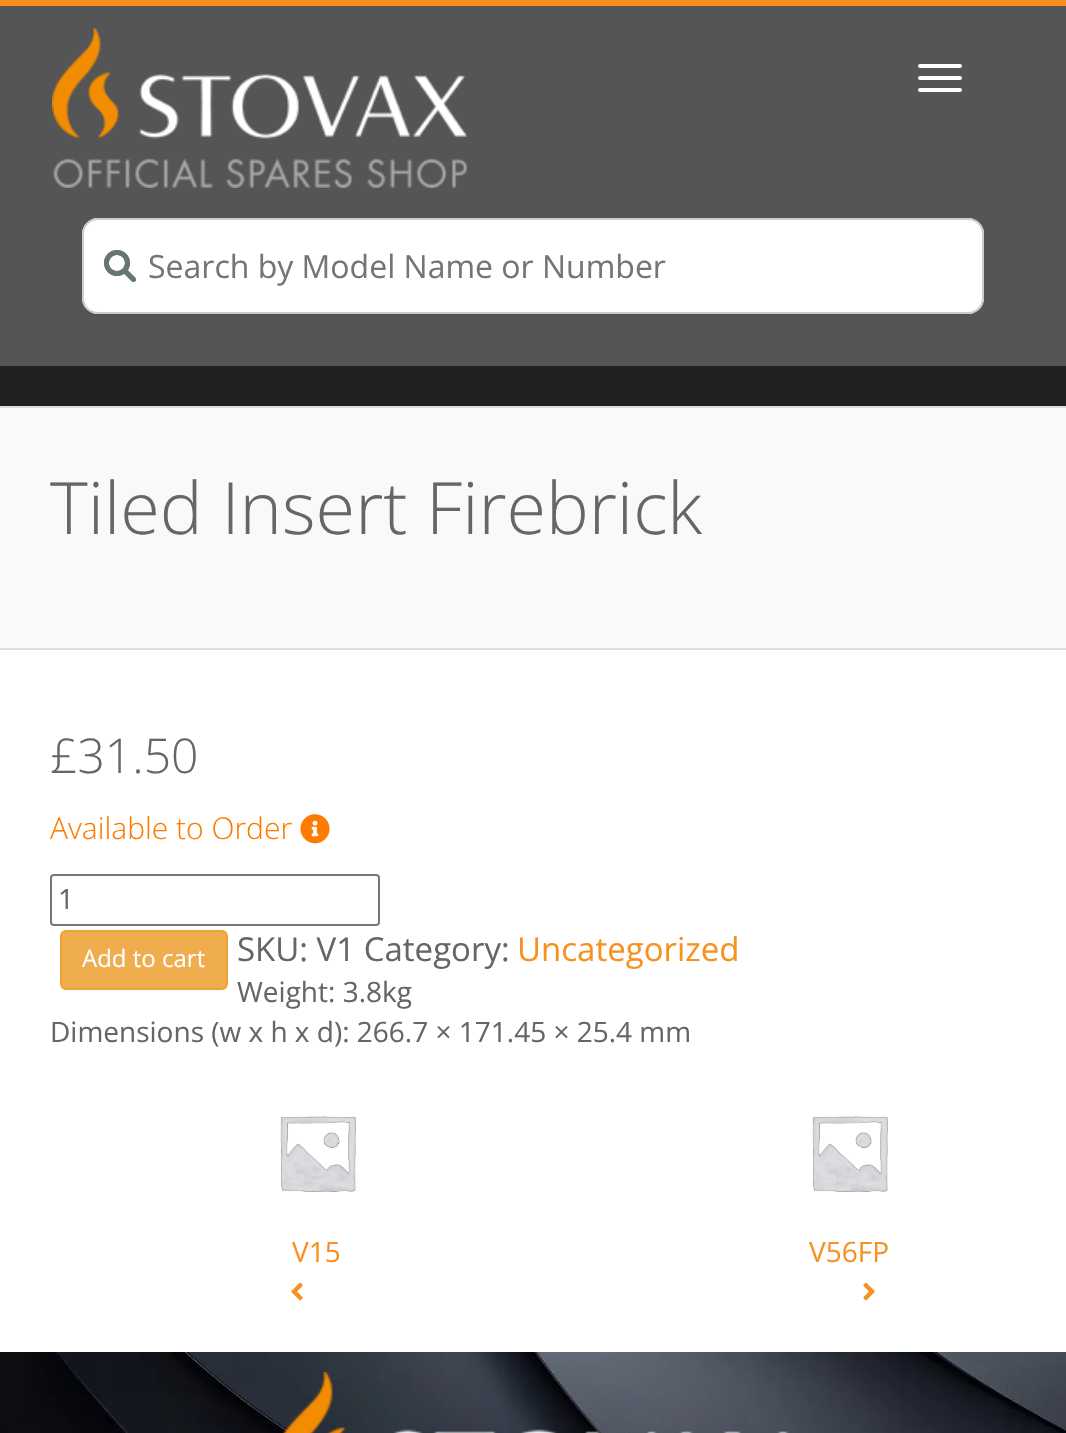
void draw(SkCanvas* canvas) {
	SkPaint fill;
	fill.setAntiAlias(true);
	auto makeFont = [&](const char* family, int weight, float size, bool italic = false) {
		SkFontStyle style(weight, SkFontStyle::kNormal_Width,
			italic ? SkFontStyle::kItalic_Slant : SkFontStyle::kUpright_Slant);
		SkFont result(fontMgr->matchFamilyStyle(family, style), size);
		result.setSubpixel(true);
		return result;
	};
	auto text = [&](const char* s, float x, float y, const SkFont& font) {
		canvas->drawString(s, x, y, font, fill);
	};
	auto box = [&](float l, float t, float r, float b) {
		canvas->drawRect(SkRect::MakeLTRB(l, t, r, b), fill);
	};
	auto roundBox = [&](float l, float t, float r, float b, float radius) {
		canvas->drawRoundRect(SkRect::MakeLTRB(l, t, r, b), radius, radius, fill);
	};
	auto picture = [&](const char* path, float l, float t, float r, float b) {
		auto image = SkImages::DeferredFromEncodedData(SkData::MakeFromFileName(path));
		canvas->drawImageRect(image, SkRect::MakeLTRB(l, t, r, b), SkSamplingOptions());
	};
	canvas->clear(0xFF212121);
	fill.setColor(0xFFF78E1F);
	box(0, 0, 1066, 6);
	fill.setColor(0xFF555555);
	box(0, 6, 1066, 366);
	picture("image0.png", 52, 28, 467, 188);
	fill.setColor(0xFFFFFFFF);
	roundBox(918, 64, 962, 68, 2);
	roundBox(918, 76, 962, 80, 2);
	roundBox(918, 88, 962, 92, 2);
	roundBox(82, 218, 984, 314, 16);
	picture("image2.png", 104, 250, 136, 282);
	picture("image1.png", 104, 250, 136, 282);
	fill.setStyle(SkPaint::kStroke_Style);
	fill.setStrokeWidth(2);
	fill.setColor(0xFFCCCCCC);
	canvas->drawRoundRect(SkRect::MakeLTRB(83, 219, 983, 313), 15, 15, fill);
	fill.setStyle(SkPaint::kFill_Style);
	fill.setColor(0xFFFFFFFF);
	box(0, 650, 1066, 1352);
	fill.setColor(0xFFF9F9F9);
	box(0, 408, 1066, 648);
	fill.setColor(0xFFDDDDDD);
	box(0, 406, 1066, 408);
	box(0, 648, 1066, 650);
	picture("image3.png", 300, 814, 330, 844);
	fill.setStyle(SkPaint::kStroke_Style);
	fill.setColor(0xFF767676);
	canvas->drawRoundRect(SkRect::MakeLTRB(51, 875, 379, 925), 3, 3, fill);
	fill.setStyle(SkPaint::kFill_Style);
	fill.setColor(0xFFF0AD4E);
	canvas->drawRoundRect(SkRect::MakeLTRB(61, 931, 227, 989), 5, 5, fill);
	fill.setStyle(SkPaint::kStroke_Style);
	fill.setColor(0xFFEEA236);
	canvas->drawRoundRect(SkRect::MakeLTRB(61, 931, 227, 989), 5, 5, fill);
	picture("image4.png", 280, 1116, 356, 1192);
	picture("image5.png", 291, 1282, 303, 1301);
	picture("image4.png", 812, 1116, 888, 1192);
	picture("image6.png", 863, 1282, 875, 1301);
	picture("image7.png", 0, 1352, 1066, 1433);
	picture("image8.png", 282, 1372, 789, 1433);
	auto font1 = makeFont("Open Sans", 400, 32);
	fill.setStyle(SkPaint::kFill_Style);
	fill.setColor(0xFF757575);
	text("Search by Model Name or Number", 148, 278, font1);
	auto font2 = makeFont("Open Sans", 300, 72);
	fill.setColor(0xFF666666);
	text("Tiled Insert Firebrick", 50, 534, font2);
	auto font3 = makeFont("Open Sans", 300, 48);
	text("£31.50", 50, 773, font3);
	auto font4 = makeFont("Open Sans", 300, 30);
	fill.setColor(0xFFFF7B00);
	text("Available to Order", 50, 839, font4);
	auto font5 = makeFont("Open Sans", 400, 28);
	fill.setColor(0xFF666666);
	text("1", 58, 909, font5);
	auto font6 = makeFont("Open Sans", 400, 24);
	fill.setColor(0xFFFFFFFF);
	text("Add to cart", 82, 967, font6);
	auto font7 = makeFont("Open Sans", 400, 33);
	fill.setColor(0xFF666666);
	text("SKU: V1 Category:", 237, 961, font7);
	fill.setColor(0xFFF79122);
	text("Uncategorized", 517, 961, font7);
	fill.setColor(0xFF666666);
	text("Weight: 3.8kg", 237, 1002, font5);
	text("Dimensions (w x h x d): 266.7 × 171.45 × 25.4 mm", 50, 1042, font5);
	fill.setColor(0xFFF79122);
	text("V15", 292, 1262, font5);
	text("V56FP", 809, 1262, font5);
}
